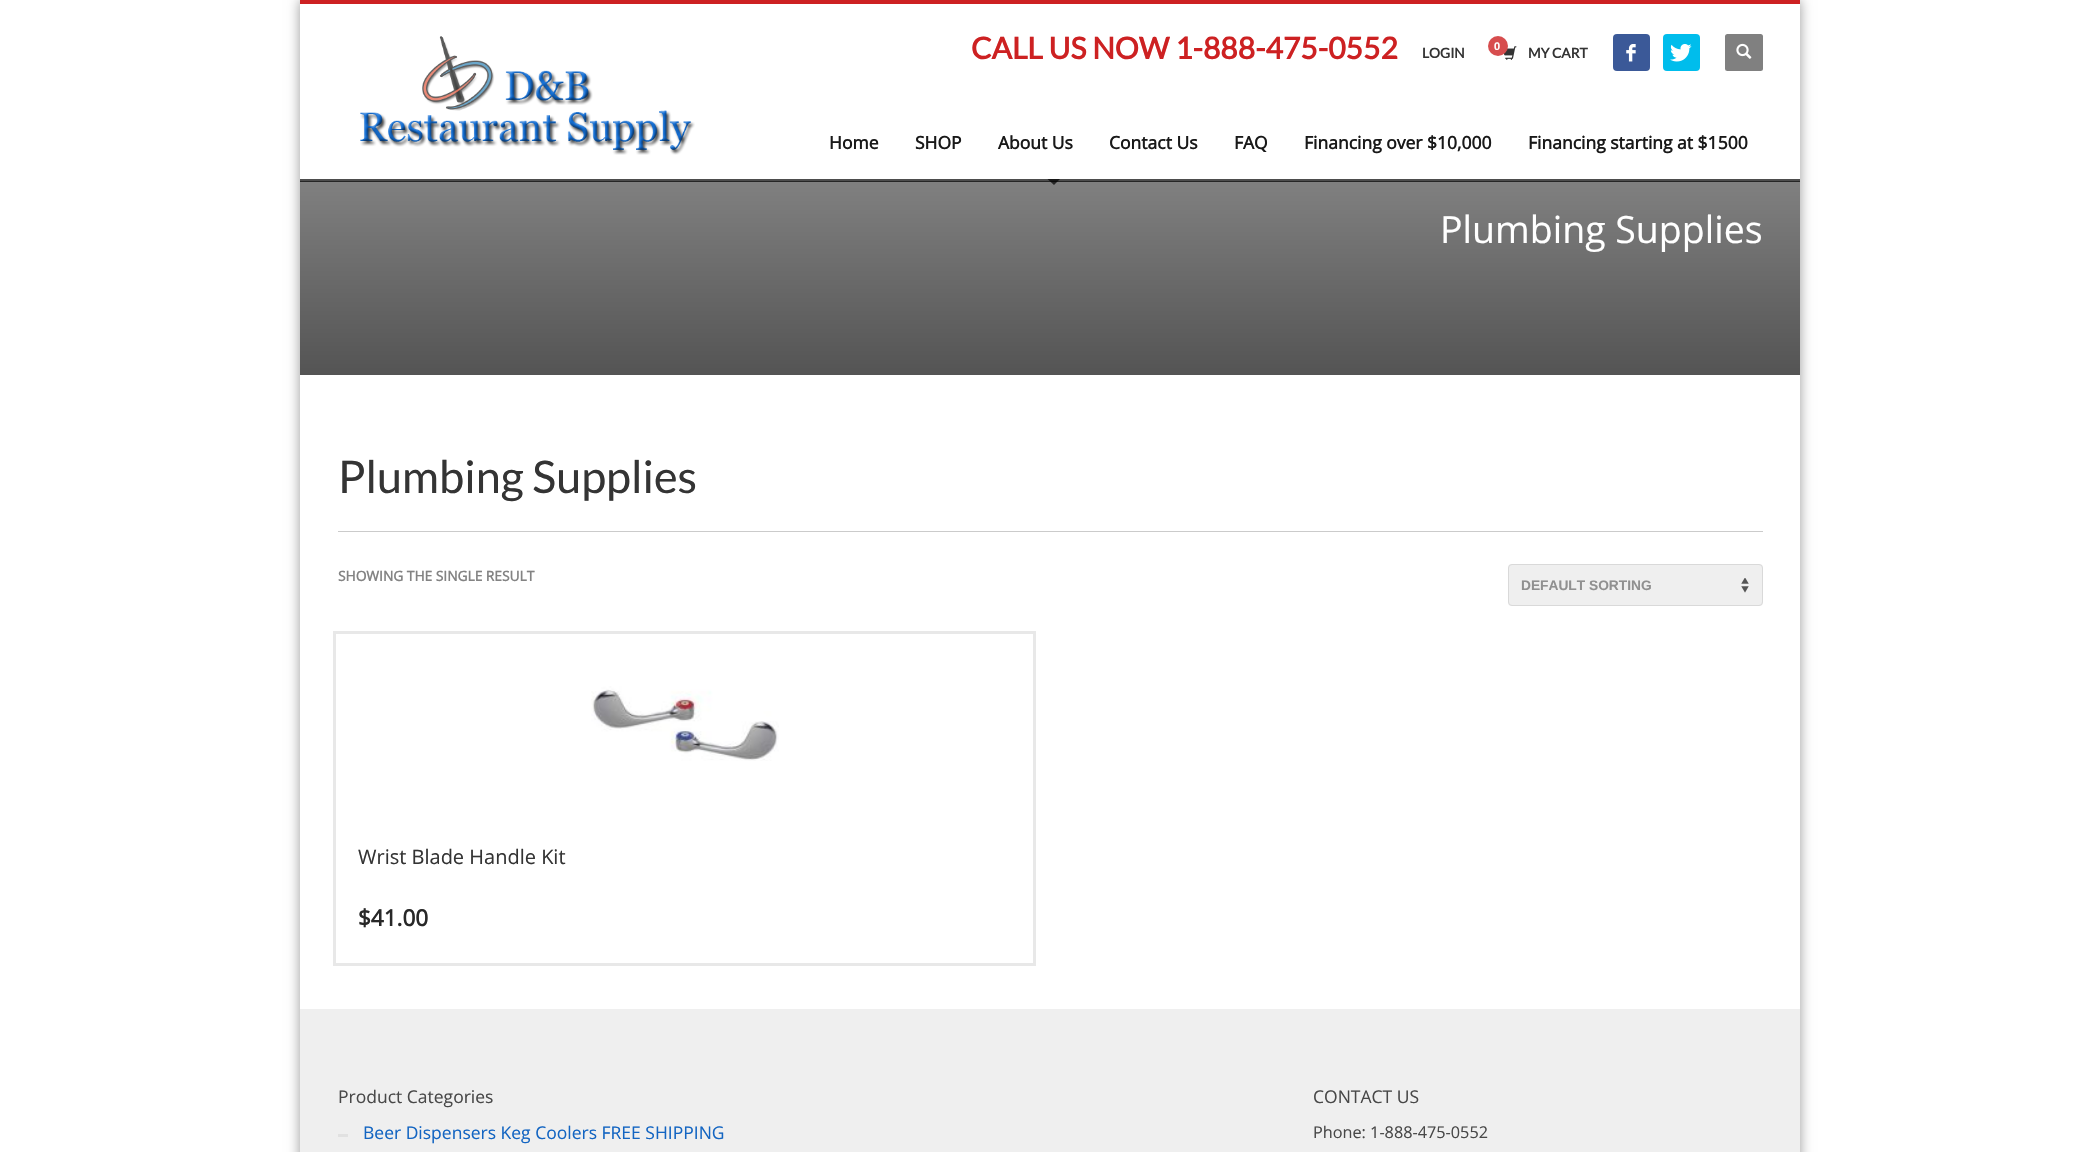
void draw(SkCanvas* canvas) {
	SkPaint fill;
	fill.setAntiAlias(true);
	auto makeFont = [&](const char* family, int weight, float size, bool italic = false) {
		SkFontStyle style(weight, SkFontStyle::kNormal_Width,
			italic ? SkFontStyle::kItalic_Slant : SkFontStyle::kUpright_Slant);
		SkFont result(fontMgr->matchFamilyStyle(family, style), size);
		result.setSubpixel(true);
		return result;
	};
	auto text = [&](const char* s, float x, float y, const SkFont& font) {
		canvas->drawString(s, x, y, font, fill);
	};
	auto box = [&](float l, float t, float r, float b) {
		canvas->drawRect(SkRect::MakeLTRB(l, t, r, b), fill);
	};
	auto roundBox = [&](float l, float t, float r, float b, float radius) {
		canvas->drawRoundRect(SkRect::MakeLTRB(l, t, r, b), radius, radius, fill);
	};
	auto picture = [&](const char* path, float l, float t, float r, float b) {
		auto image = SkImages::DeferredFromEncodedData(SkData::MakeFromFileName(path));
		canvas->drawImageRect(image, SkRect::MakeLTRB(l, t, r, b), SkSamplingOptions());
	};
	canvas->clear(0xFFFFFFFF);
	canvas->save();
	canvas->clipPath(SkPathBuilder(SkPathFillType::kEvenOdd).moveTo(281, 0).lineTo(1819, 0).lineTo(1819, 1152).lineTo(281, 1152).close().moveTo(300, 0).lineTo(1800, 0).lineTo(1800, 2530).lineTo(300, 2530).close().detach(), true);
	fill.setColor(0x66000000);
	fill.setMaskFilter(SkMaskFilter::MakeBlur(kNormal_SkBlurStyle, 6));
	canvas->drawRect(SkRect::MakeLTRB(300, 0, 1800, 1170), fill);
	fill.setMaskFilter(nullptr);
	canvas->restore();
	fill.setColor(0xFF4D4D4D);
	box(300, 179, 1800, 181);
	fill.setColor(0xFFCD2122);
	box(300, 0, 1800, 4);
	picture("image0.png", 360, 36, 695, 155);
	picture("image1.png", 1504, 46, 1517, 60);
	fill.setColor(0xFFD74D4E);
	canvas->drawCircle(1498, 46, 10, fill);
	fill.setColor(0xFF3B5998);
	roundBox(1613, 34, 1650, 71, 4);
	picture("image2.png", 1626, 44, 1636, 62);
	fill.setColor(0xFF00BDEC);
	roundBox(1663, 34, 1700, 71, 4);
	picture("image3.png", 1670, 44, 1692, 62);
	fill.setColor(0xFF808080);
	roundBox(1725, 34, 1763, 71, 2.5f);
	picture("image4.png", 1736, 43, 1752, 59);
	{
		const SkColor colors[] = {0xFFA9A9A9, 0xFF545454};
		const float stops[] = {0, 1};
		const SkPoint ends[] = {{1050, 0}, {1050, 375}};
		fill.setShader(SkGradientShader::MakeLinear(ends, colors, stops, 2, SkTileMode::kClamp));
		fill.setAlpha(255);
	}
	box(300, 182, 1800, 375);
	{
		const SkColor colors[] = {0xFF333333, 0xFF191919};
		const float stops[] = {0, 1};
		const SkPoint ends[] = {{1050, 0}, {1050, 375}};
		fill.setShader(SkGradientShader::MakeLinear(ends, colors, stops, 2, SkTileMode::kClamp));
		fill.setAlpha(255);
	}
	box(300, 181, 1800, 182);
	fill.setShader(nullptr);
	fill.setColor(0xB3000000);
	canvas->drawPath(SkPathBuilder().moveTo(1047.5f, 179).lineTo(1060, 179).lineTo(1054, 185).close().detach(), fill);
	fill.setColor(0xFFCBCBCB);
	box(338, 531, 1763, 532);
	fill.setColor(0xFFEFEFEF);
	roundBox(1508, 564, 1763, 606, 4);
	picture("image5.png", 1741, 578, 1749, 593);
	fill.setStyle(SkPaint::kStroke_Style);
	fill.setStrokeWidth(1);
	fill.setColor(0xFFD9D9D9);
	canvas->drawRoundRect(SkRect::MakeLTRB(1508.5f, 564.5f, 1762.5f, 605.5f), 3.5f, 3.5f, fill);
	picture("image6.png", 591, 686, 779, 761);
	fill.setStrokeWidth(3);
	fill.setColor(0xFFE8E8E8);
	canvas->drawRect(SkRect::MakeLTRB(334.5f, 632.5f, 1034.5f, 964.5f), fill);
	fill.setStyle(SkPaint::kFill_Style);
	fill.setColor(0xFFEFEFEF);
	box(300, 1009, 1800, 1152);
	fill.setColor(0xFFE1E1E1);
	box(338, 1134, 348, 1137);
	auto font1 = makeFont("Lato", 700, 30);
	fill.setColor(0xFFCD2122);
	text("CALL US NOW 1-888-475-0552", 971, 59, font1);
	auto font2 = makeFont("Lato", 700, 13.75f);
	fill.setColor(0xFF343434);
	text("LOGIN", 1422, 58, font2);
	auto font3 = makeFont("Liberation Sans", 700, 11);
	fill.setColor(0xFFFFFFFF);
	text("0", 1494, 50, font3);
	fill.setColor(0xFF343434);
	text("MY CART", 1528, 58, font2);
	auto font4 = makeFont("Open Sans", 700, 17.5f);
	fill.setColor(0xFF191919);
	text("Home", 829, 149, font4);
	text("SHOP", 915, 149, font4);
	text("About Us", 998, 149, font4);
	text("Contact Us", 1109, 149, font4);
	text("FAQ", 1234, 149, font4);
	text("Financing over $10,000", 1304, 149, font4);
	text("Financing starting at $1500", 1528, 149, font4);
	auto font5 = makeFont("Open Sans", 400, 37.5f);
	fill.setColor(0xFFFFFFFF);
	text("Plumbing Supplies", 1440, 243, font5);
	auto font6 = makeFont("Lato", 400, 45);
	fill.setColor(0xFF343434);
	text("Plumbing Supplies", 338, 493, font6);
	auto font7 = makeFont("Open Sans", 700, 13.75f);
	fill.setColor(0xFF838383);
	text("SHOWING THE SINGLE RESULT", 338, 581, font7);
	auto font8 = makeFont("Liberation Sans", 700, 13.75f);
	fill.setColor(0xFF909090);
	text("DEFAULT SORTING", 1521, 590, font8);
	auto font9 = makeFont("Open Sans", 400, 20);
	fill.setColor(0xFF343434);
	text("Wrist Blade Handle Kit", 358, 864, font9);
	auto font10 = makeFont("Open Sans", 700, 22.5f);
	fill.setColor(0xFF282828);
	text("$41.00", 358, 926, font10);
	auto font11 = makeFont("Open Sans", 400, 17.5f);
	fill.setColor(0xFF484848);
	text("Product Categories", 338, 1103, font11);
	fill.setColor(0xFF1365C2);
	text("Beer Dispensers Keg Coolers FREE SHIPPING", 363, 1139, font11);
	fill.setColor(0xFF484848);
	text("CONTACT US", 1313, 1103, font11);
	auto font12 = makeFont("Open Sans", 400, 16.25f);
	text("Phone: 1-888-475-0552", 1313, 1138, font12);
}
